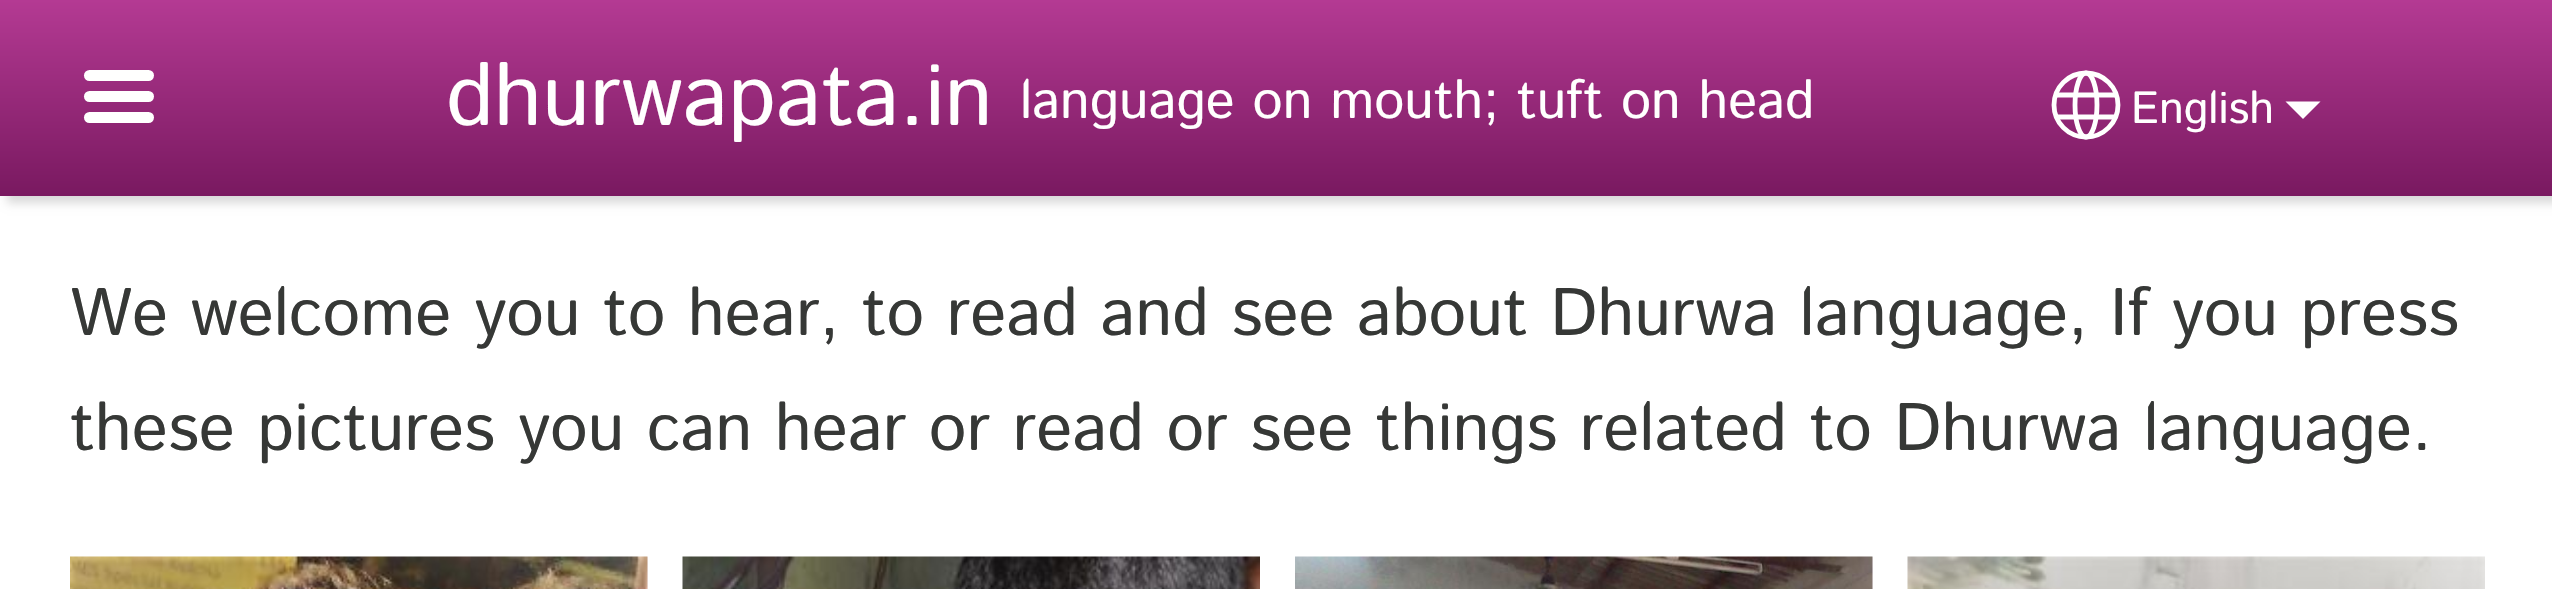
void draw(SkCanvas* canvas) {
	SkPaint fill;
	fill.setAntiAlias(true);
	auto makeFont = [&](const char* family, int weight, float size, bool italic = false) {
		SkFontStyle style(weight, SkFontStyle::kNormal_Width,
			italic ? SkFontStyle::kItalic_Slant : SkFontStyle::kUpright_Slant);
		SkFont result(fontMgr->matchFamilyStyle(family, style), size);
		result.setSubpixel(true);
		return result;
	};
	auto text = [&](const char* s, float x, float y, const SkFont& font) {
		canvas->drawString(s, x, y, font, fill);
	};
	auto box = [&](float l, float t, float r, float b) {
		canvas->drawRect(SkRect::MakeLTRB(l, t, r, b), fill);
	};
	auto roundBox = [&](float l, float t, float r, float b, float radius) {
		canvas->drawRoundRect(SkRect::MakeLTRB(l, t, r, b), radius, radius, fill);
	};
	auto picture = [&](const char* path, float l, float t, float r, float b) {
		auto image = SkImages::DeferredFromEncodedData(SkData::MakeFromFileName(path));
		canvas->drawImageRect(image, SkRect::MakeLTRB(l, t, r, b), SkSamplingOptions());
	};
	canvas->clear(0xFFFFFFFF);
	fill.setColor(0x26000000);
	fill.setMaskFilter(SkMaskFilter::MakeBlur(kNormal_SkBlurStyle, 4.5f));
	canvas->drawRect(SkRect::MakeLTRB(7, 7, 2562, 203), fill);
	fill.setMaskFilter(nullptr);
	{
		const SkColor colors[] = {0xFFB43A93, 0xFF791960};
		const float stops[] = {0, 1};
		const SkPoint ends[] = {{1278, 0}, {1278, 196}};
		fill.setShader(SkGradientShader::MakeLinear(ends, colors, stops, 2, SkTileMode::kClamp));
		fill.setAlpha(255);
	}
	box(0, 0, 2552, 196);
	fill.setShader(nullptr);
	fill.setColor(0xFFFFFFFE);
	roundBox(84, 70, 154, 81, 5.5f);
	roundBox(84, 91, 154, 102, 5.5f);
	roundBox(84, 112, 154, 123, 5.5f);
	fill.setStyle(SkPaint::kStroke_Style);
	fill.setStrokeWidth(4.8f);
	canvas->drawCircle(2086, 105, 32, fill);
	canvas->drawOval(SkRect::MakeLTRB(2075, 73, 2097, 137), fill);
	canvas->drawPath(SkPathBuilder().moveTo(2055.5f, 117).lineTo(2116, 117).moveTo(2055.5f, 95).lineTo(2116, 95).detach(), fill);
	fill.setStyle(SkPaint::kFill_Style);
	canvas->drawPath(SkPathBuilder().moveTo(2285.5f, 101.5f).lineTo(2320.5f, 101.5f).lineTo(2303, 119).close().detach(), fill);
	fill.setColor(0xFFF9F2FA);
	box(647, 557, 648, 589);
	picture("image0.png", 70, 556, 648, 589);
	picture("image1.png", 682, 556, 1260, 589);
	box(1872, 557, 1873, 589);
	picture("image2.png", 1295, 556, 1873, 589);
	picture("image3.png", 1907, 556, 2485, 589);
	auto font1 = makeFont("Istok Web", 400, 87.5f);
	fill.setColor(0xFFFFFFFE);
	text("dhurwapata.in", 446, 125, font1);
	auto font2 = makeFont("Istok Web", 400, 53.75f);
	text("language on mouth; tuft on head", 1020, 118, font2);
	auto font3 = makeFont("Istok Web", 400, 45);
	text("English", 2131, 123, font3);
	auto font4 = makeFont("Istok Web", 400, 67.2f);
	fill.setColor(0xFF363836);
	text("We welcome you to hear, to read and see about Dhurwa language, If you press", 70, 335, font4);
	text("these pictures you can hear or read or see things related to Dhurwa language.", 70, 450, font4);
}
